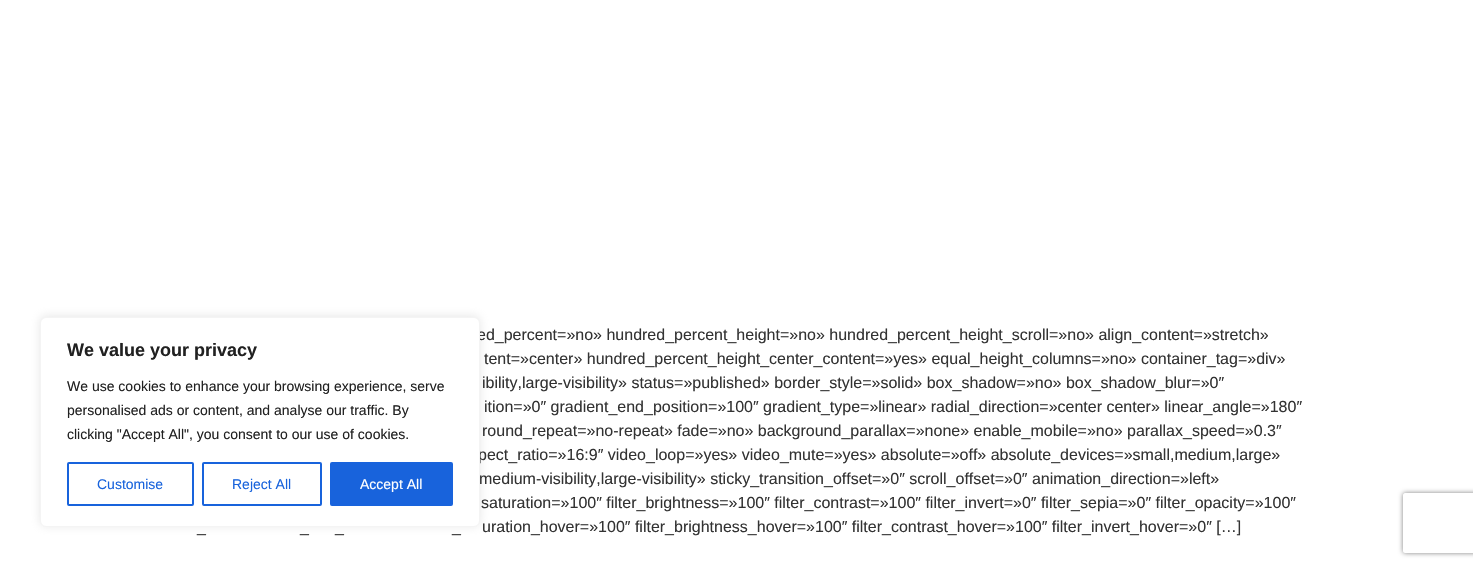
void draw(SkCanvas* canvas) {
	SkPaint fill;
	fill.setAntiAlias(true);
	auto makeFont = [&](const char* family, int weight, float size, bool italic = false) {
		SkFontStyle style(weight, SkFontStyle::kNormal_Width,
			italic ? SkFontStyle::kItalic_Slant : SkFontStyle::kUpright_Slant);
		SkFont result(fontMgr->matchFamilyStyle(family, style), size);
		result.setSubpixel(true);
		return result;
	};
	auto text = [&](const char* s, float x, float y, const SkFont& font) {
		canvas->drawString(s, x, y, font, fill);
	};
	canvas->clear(0xFFFFFFFF);
	fill.setColor(0x4DACABAB);
	fill.setMaskFilter(SkMaskFilter::MakeBlur(kNormal_SkBlurStyle, 5));
	canvas->drawRoundRect(SkRect::MakeLTRB(40, 316, 480, 526), 6, 6, fill);
	fill.setMaskFilter(nullptr);
	canvas->save();
	canvas->clipPath(SkPathBuilder(SkPathFillType::kEvenOdd).moveTo(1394, 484).lineTo(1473, 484).lineTo(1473, 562).lineTo(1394, 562).close().moveTo(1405, 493).lineTo(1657, 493).cubicTo(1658, 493, 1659, 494, 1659, 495).lineTo(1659, 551).cubicTo(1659, 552, 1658, 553, 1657, 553).lineTo(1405, 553).cubicTo(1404, 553, 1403, 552, 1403, 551).lineTo(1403, 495).cubicTo(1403, 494, 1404, 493, 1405, 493).close().detach(), true);
	fill.setColor(0xFF808080);
	fill.setMaskFilter(SkMaskFilter::MakeBlur(kNormal_SkBlurStyle, 2.5f));
	canvas->drawRoundRect(SkRect::MakeLTRB(1403, 493, 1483, 553), 2, 2, fill);
	fill.setMaskFilter(nullptr);
	canvas->restore();
	auto font1 = makeFont("Liberation Sans", 400, 16);
	fill.setColor(0xFF333333);
	text("ed_percent=»no» hundred_percent_height=»no» hundred_percent_height_scroll=»no» align_content=»stretch»", 477, 340, font1);
	text("tent=»center» hundred_percent_height_center_content=»yes» equal_height_columns=»no» container_tag=»div»", 484, 364, font1);
	text("ibility,large-visibility» status=»published» border_style=»solid» box_shadow=»no» box_shadow_blur=»0″", 482, 388, font1);
	text("ition=»0″ gradient_end_position=»100″ gradient_type=»linear» radial_direction=»center center» linear_angle=»180″", 484, 412, font1);
	text("round_repeat=»no-repeat» fade=»no» background_parallax=»none» enable_mobile=»no» parallax_speed=»0.3″", 482, 436, font1);
	text("pect_ratio=»16:9″ video_loop=»yes» video_mute=»yes» absolute=»off» absolute_devices=»small,medium,large»", 478, 460, font1);
	text("medium-visibility,large-visibility» sticky_transition_offset=»0″ scroll_offset=»0″ animation_direction=»left»", 479, 484, font1);
	text("saturation=»100″ filter_brightness=»100″ filter_contrast=»100″ filter_invert=»0″ filter_sepia=»0″ filter_opacity=»100″", 481, 508, font1);
	text("_", 197, 532, font1);
	text("_", 300, 532, font1);
	text("_", 335, 532, font1);
	text("_", 452, 532, font1);
	text("uration_hover=»100″ filter_brightness_hover=»100″ filter_contrast_hover=»100″ filter_invert_hover=»0″ […]", 482, 532, font1);
	fill.setColor(0xFFFFFFFF);
	canvas->drawRoundRect(SkRect::MakeLTRB(40.5f, 317.5f, 479.5f, 526.5f), 5.5f, 5.5f, fill);
	fill.setStyle(SkPaint::kStroke_Style);
	fill.setStrokeWidth(1);
	fill.setColor(0xFFF4F4F4);
	canvas->drawRoundRect(SkRect::MakeLTRB(40.5f, 317.5f, 479.5f, 526.5f), 5.5f, 5.5f, fill);
	auto font2 = makeFont("Liberation Sans", 700, 18);
	fill.setStyle(SkPaint::kFill_Style);
	fill.setColor(0xFF212121);
	text("We value your privacy", 67, 356, font2);
	auto font3 = makeFont("Liberation Sans", 400, 14);
	text("We use cookies to enhance your browsing experience, serve", 67, 391, font3);
	text("personalised ads or content, and analyse our traffic. By", 67, 415, font3);
	text("clicking \"Accept All\", you consent to our use of cookies.", 67, 439, font3);
	fill.setStyle(SkPaint::kStroke_Style);
	fill.setStrokeWidth(2);
	fill.setColor(0xFF1863DC);
	canvas->drawRoundRect(SkRect::MakeLTRB(68, 463, 193, 505), 1, 1, fill);
	fill.setStyle(SkPaint::kFill_Style);
	text("Customise", 97, 489, font3);
	fill.setStyle(SkPaint::kStroke_Style);
	canvas->drawRoundRect(SkRect::MakeLTRB(203, 463, 321, 505), 1, 1, fill);
	fill.setStyle(SkPaint::kFill_Style);
	text("Reject All", 232, 489, font3);
	canvas->drawRoundRect(SkRect::MakeLTRB(331, 463, 452, 505), 1, 1, fill);
	fill.setStyle(SkPaint::kStroke_Style);
	canvas->drawRoundRect(SkRect::MakeLTRB(331, 463, 452, 505), 1, 1, fill);
	fill.setStyle(SkPaint::kFill_Style);
	fill.setColor(0xFFFFFFFF);
	text("Accept All", 360, 489, font3);
}
